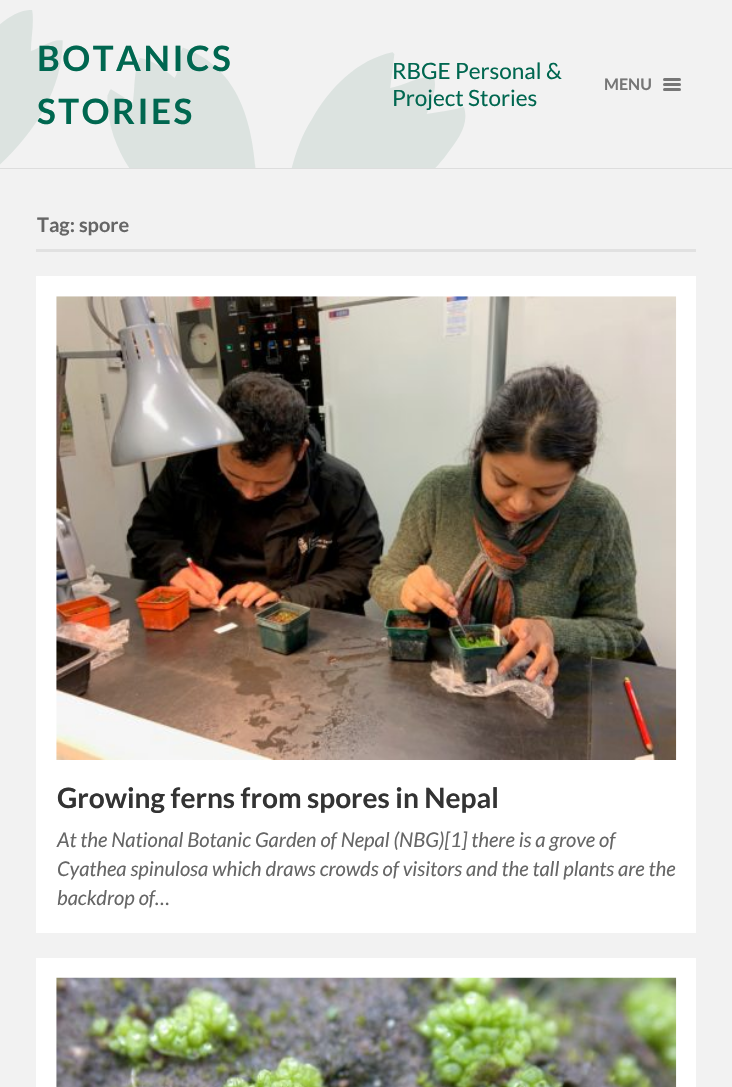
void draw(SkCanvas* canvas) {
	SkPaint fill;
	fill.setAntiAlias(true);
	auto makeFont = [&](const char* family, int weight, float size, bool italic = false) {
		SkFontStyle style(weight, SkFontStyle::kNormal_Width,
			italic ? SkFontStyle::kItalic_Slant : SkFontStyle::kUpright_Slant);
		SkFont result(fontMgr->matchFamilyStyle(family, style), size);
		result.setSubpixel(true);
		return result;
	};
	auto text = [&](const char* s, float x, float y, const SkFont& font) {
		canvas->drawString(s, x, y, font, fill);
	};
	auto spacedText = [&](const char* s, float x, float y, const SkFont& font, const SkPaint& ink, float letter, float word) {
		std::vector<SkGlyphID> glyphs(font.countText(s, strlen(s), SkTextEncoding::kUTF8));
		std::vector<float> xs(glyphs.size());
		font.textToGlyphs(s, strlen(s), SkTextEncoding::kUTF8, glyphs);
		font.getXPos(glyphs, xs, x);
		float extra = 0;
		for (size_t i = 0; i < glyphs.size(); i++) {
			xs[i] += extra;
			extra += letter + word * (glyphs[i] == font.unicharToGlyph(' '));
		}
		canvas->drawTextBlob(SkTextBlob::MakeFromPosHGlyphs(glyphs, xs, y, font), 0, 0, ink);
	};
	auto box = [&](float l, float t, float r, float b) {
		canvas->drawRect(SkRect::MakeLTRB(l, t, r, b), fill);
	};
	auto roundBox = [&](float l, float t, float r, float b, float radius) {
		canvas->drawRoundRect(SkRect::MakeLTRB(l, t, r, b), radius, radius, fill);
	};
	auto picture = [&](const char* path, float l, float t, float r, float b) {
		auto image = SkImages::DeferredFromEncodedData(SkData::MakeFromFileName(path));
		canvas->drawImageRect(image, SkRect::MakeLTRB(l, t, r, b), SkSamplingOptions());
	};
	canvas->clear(0xFFF2F2F2);
	picture("image0.png", 0, 10, 466, 168);
	fill.setColor(0xFFDDDDDD);
	box(0, 168, 732, 169);
	fill.setColor(0xFF767676);
	roundBox(663, 78, 681, 81, 1.5f);
	roundBox(663, 83, 681, 86, 1.5f);
	roundBox(663, 88, 681, 91, 1.5f);
	fill.setColor(0xFFE1E1E1);
	box(36, 249, 696, 252);
	fill.setColor(0xFFFFFFFF);
	box(36, 276, 696, 933);
	picture("image1.png", 56, 296, 677, 760);
	box(36, 958, 696, 1087);
	picture("image2.png", 56, 977, 677, 1087);
	auto font1 = makeFont("Lato", 700, 35);
	fill.setColor(0xFF006750);
	spacedText("BOTANICS", 37, 71, font1, fill, 2.5f, 0);
	spacedText("STORIES", 37, 124, font1, fill, 2.5f, 0);
	auto font2 = makeFont("Lato", 400, 22.5f);
	text("RBGE Personal &", 392, 79, font2);
	text("Project Stories", 392, 106, font2);
	auto font3 = makeFont("Lato", 700, 16);
	fill.setColor(0xFF767676);
	text("MENU", 604, 90, font3);
	auto font4 = makeFont("Lato", 700, 20);
	fill.setColor(0xFF666666);
	text("Tag: spore", 37, 232, font4);
	auto font5 = makeFont("Lato", 700, 28.1f);
	fill.setColor(0xFF333333);
	text("Growing ferns from spores in Nepal", 57, 808, font5);
	auto font6 = makeFont("Lato", 400, 20.25f, true);
	fill.setColor(0xFF666666);
	text("At the National Botanic Garden of Nepal (NBG)[1] there is a grove of", 57, 847, font6);
	text("Cyathea spinulosa which draws crowds of visitors and the tall plants are the", 57, 876, font6);
	text("backdrop of…", 57, 905, font6);
}
